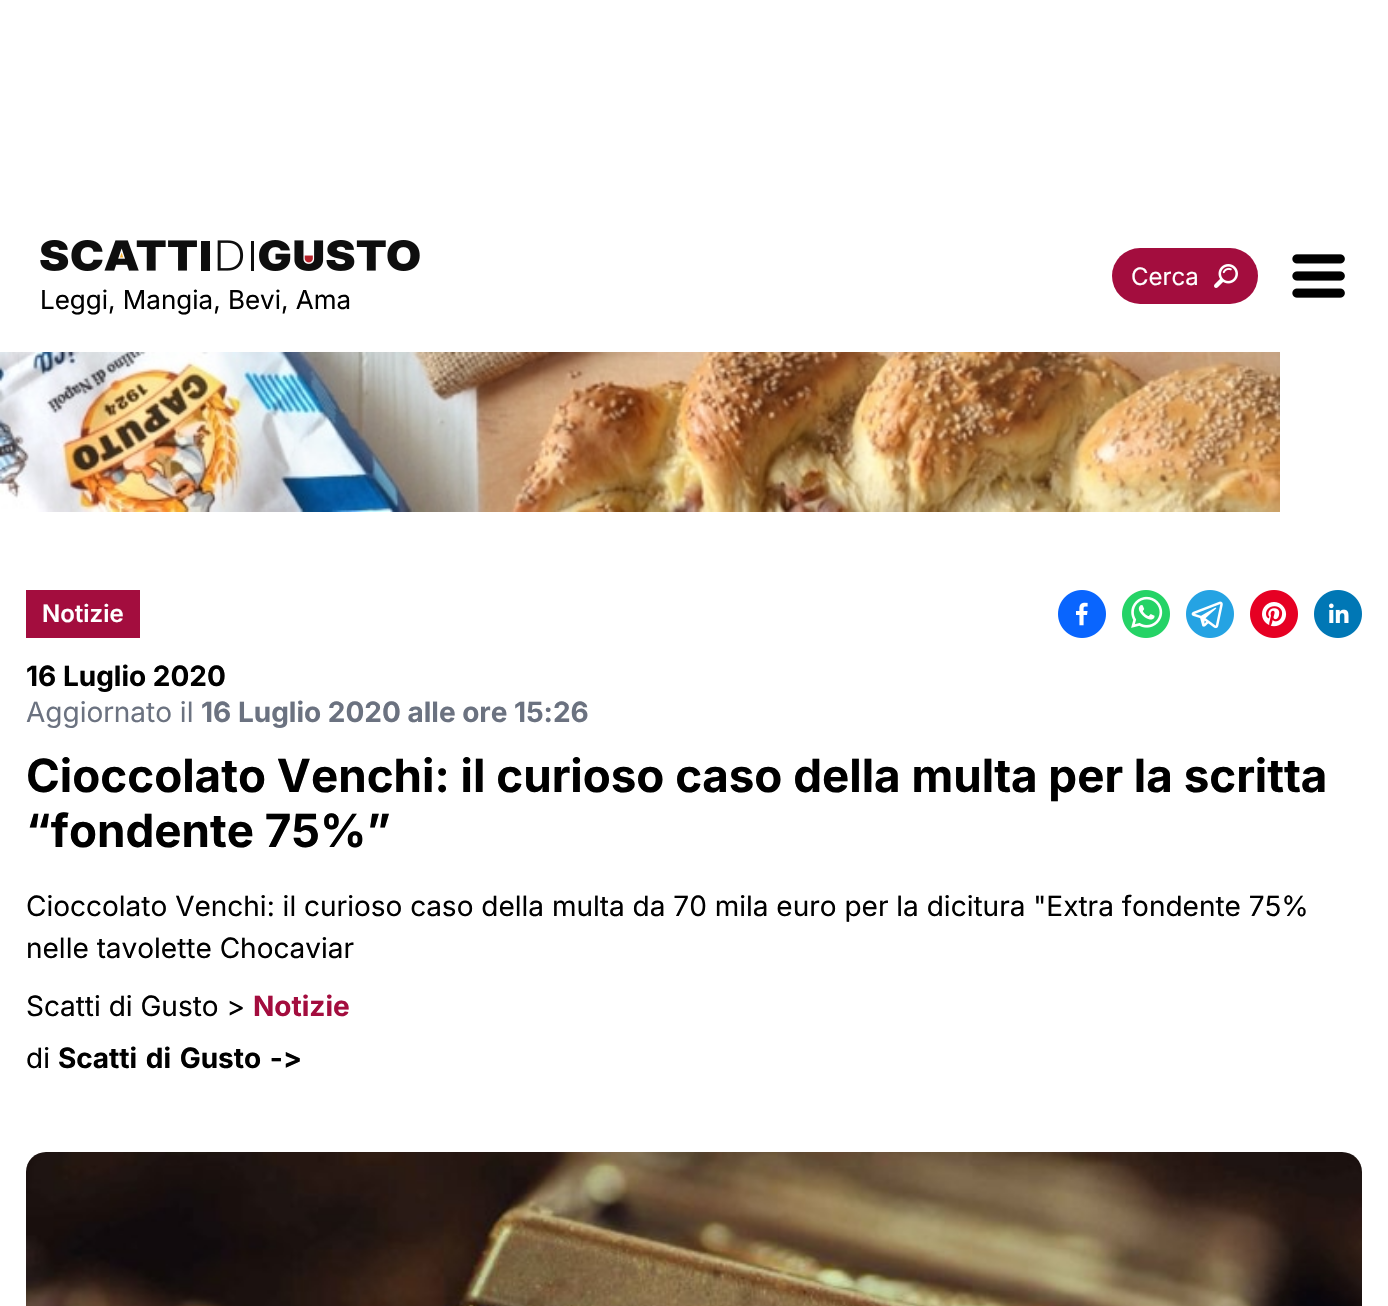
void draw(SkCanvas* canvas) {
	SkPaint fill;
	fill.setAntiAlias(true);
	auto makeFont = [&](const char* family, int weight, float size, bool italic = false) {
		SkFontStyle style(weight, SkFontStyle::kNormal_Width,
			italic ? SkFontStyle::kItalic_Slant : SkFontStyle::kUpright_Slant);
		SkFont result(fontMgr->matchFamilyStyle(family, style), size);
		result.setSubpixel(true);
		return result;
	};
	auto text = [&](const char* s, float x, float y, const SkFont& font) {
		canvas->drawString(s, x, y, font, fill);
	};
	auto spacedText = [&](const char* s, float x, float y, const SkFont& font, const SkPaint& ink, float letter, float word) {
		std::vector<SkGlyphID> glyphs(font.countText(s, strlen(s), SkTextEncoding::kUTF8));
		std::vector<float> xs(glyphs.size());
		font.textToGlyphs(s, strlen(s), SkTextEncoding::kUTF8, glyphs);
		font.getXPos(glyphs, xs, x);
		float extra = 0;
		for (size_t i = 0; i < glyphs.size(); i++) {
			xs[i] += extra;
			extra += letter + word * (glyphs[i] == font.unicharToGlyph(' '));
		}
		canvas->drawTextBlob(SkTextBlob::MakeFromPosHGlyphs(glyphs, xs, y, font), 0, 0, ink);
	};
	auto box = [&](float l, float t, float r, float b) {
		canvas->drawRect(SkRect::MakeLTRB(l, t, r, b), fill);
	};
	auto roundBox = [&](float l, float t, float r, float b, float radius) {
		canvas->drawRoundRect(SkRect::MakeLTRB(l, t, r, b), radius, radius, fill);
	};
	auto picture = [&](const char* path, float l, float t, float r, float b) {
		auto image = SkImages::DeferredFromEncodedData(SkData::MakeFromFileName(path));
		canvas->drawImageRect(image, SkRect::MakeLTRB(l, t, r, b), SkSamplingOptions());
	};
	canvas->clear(0xFFFFFFFF);
	fill.setColor(0xFFA30D3E);
	roundBox(1112, 248, 1258, 304, 28);
	picture("image0.png", 1214, 264, 1238, 288);
	picture("image1.png", 1292, 254, 1345, 298);
	picture("image2.png", 40, 240, 420, 271);
	picture("image3.png", 0, 352, 1280, 512);
	box(26, 590, 140, 638);
	picture("image4.png", 1058, 590, 1106, 638);
	picture("image5.png", 1122, 590, 1170, 638);
	picture("image6.png", 1186, 590, 1234, 638);
	picture("image7.png", 1250, 590, 1298, 638);
	picture("image8.png", 1314, 590, 1362, 638);
	picture("image9.png", 26, 1152, 1362, 1306);
	auto font1 = makeFont("Inter", 400, 24);
	fill.setColor(0xFFFFFFFF);
	text("Cerca", 1131, 285, font1);
	auto font2 = makeFont("Inter", 400, 26);
	fill.setColor(0xFF000000);
	text("Leggi, Mangia, Bevi, Ama", 40, 309, font2);
	auto font3 = makeFont("Inter", 600, 24);
	fill.setColor(0xFFFFFFFF);
	text("Notizie", 42, 622, font3);
	auto font4 = makeFont("Inter", 700, 28);
	fill.setColor(0xFF000000);
	text("16 Luglio 2020", 26, 686, font4);
	auto font5 = makeFont("Inter", 400, 28);
	fill.setColor(0xFF6B7280);
	text("Aggiornato il", 26, 722, font5);
	text("16 Luglio 2020 alle ore 15:26", 201, 722, font4);
	auto font6 = makeFont("Inter", 700, 45.75f);
	fill.setColor(0xFF000000);
	text("Cioccolato Venchi: il curioso caso della multa per la scritta", 26, 792, font6);
	text("“fondente 75%”", 26, 847, font6);
	text("Cioccolato Venchi: il curioso caso della multa da 70 mila euro per la dicitura \"Extra fondente 75%", 26, 916, font5);
	text("nelle tavolette Chocaviar", 26, 958, font5);
	text("Scatti di Gusto >", 26, 1016, font5);
	fill.setColor(0xFFA30D3E);
	text("Notizie", 253, 1016, font4);
	fill.setColor(0xFF000000);
	text("di", 26, 1068, font5);
	spacedText("Scatti di Gusto ->", 58, 1068, font4, fill, 0, 2);
}
